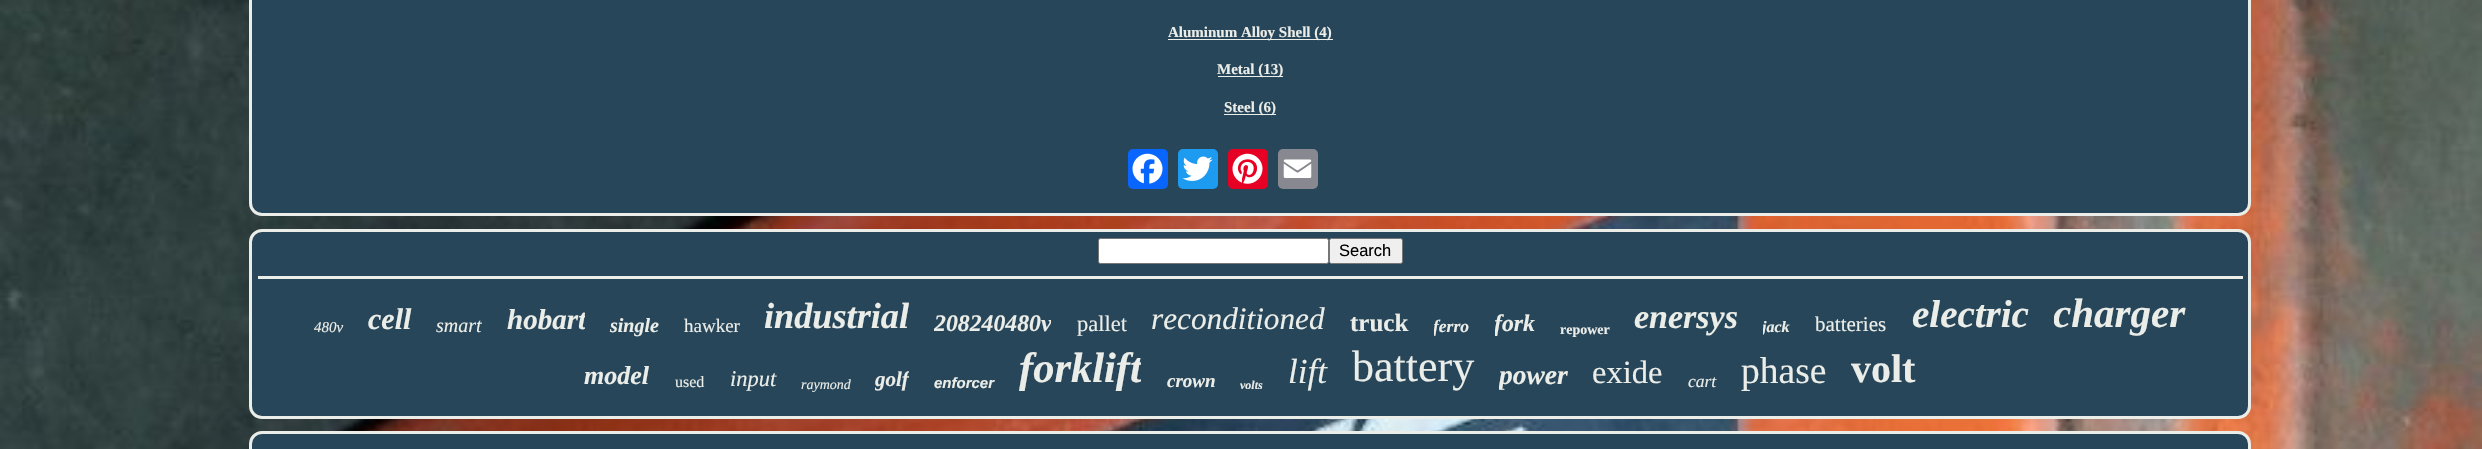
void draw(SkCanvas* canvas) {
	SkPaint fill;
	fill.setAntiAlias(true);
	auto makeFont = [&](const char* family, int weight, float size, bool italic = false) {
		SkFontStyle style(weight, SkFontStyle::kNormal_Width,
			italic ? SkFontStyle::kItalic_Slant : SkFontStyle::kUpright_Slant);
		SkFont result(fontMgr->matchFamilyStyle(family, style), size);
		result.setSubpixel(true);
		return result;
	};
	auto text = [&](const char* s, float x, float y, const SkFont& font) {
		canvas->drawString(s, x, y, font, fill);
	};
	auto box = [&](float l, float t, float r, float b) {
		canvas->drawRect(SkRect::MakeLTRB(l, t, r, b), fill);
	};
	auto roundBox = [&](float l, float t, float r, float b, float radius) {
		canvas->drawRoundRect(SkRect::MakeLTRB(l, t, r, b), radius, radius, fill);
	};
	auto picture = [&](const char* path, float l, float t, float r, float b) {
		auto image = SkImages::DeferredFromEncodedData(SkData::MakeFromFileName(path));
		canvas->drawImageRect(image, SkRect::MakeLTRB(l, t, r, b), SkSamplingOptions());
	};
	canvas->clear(0xFFFFFFFF);
	picture("image0.png", 0, 0, 2482, 449);
	fill.setColor(0xFF27465A);
	canvas->drawRoundRect(SkRect::MakeLTRB(250.5f, -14.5f, 2249.5f, 214.5f), 11.5f, 11.5f, fill);
	fill.setStyle(SkPaint::kStroke_Style);
	fill.setStrokeWidth(3);
	fill.setColor(0xFFEBEDE8);
	canvas->drawRoundRect(SkRect::MakeLTRB(250.5f, -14.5f, 2249.5f, 214.5f), 11.5f, 11.5f, fill);
	fill.setStyle(SkPaint::kFill_Style);
	box(1168, 39, 1333, 40);
	box(1218, 76, 1283, 77);
	box(1224, 114, 1276, 115);
	fill.setColor(0xFF0866FF);
	roundBox(1128, 149, 1168, 189, 5);
	picture("image1.png", 1132, 153, 1163, 184);
	fill.setColor(0xFF1D9BF0);
	roundBox(1178, 149, 1218, 189, 5);
	picture("image2.png", 1182, 156, 1213, 181);
	fill.setColor(0xFFE60023);
	roundBox(1228, 149, 1268, 189, 5);
	picture("image3.png", 1232, 153, 1263, 184);
	fill.setColor(0xFF888990);
	roundBox(1278, 149, 1318, 189, 5);
	picture("image4.png", 1283, 159, 1312, 178);
	fill.setColor(0xFF27465A);
	canvas->drawRoundRect(SkRect::MakeLTRB(250.5f, 230.5f, 2249.5f, 417.5f), 11.5f, 11.5f, fill);
	fill.setStyle(SkPaint::kStroke_Style);
	fill.setColor(0xFFEBEDE8);
	canvas->drawRoundRect(SkRect::MakeLTRB(250.5f, 230.5f, 2249.5f, 417.5f), 11.5f, 11.5f, fill);
	fill.setStyle(SkPaint::kFill_Style);
	fill.setColor(0xFFFFFFFF);
	canvas->drawRoundRect(SkRect::MakeLTRB(1098.5f, 238.5f, 1328.5f, 263.5f), 2, 2, fill);
	fill.setStyle(SkPaint::kStroke_Style);
	fill.setStrokeWidth(1);
	fill.setColor(0xFF767676);
	canvas->drawRoundRect(SkRect::MakeLTRB(1098.5f, 238.5f, 1328.5f, 263.5f), 2, 2, fill);
	fill.setStyle(SkPaint::kFill_Style);
	fill.setColor(0xFFEFEFEF);
	canvas->drawRoundRect(SkRect::MakeLTRB(1329.5f, 238.5f, 1402.5f, 263.5f), 2, 2, fill);
	fill.setStyle(SkPaint::kStroke_Style);
	fill.setColor(0xFF767676);
	canvas->drawRoundRect(SkRect::MakeLTRB(1329.5f, 238.5f, 1402.5f, 263.5f), 2, 2, fill);
	fill.setStyle(SkPaint::kFill_Style);
	fill.setColor(0xFFEBEDE8);
	box(258, 276, 2243, 279);
	fill.setColor(0xFF27465A);
	canvas->drawRoundRect(SkRect::MakeLTRB(250.5f, 432.5f, 2249.5f, 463.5f), 11.5f, 11.5f, fill);
	fill.setStyle(SkPaint::kStroke_Style);
	fill.setStrokeWidth(3);
	fill.setColor(0xFFEBEDE8);
	canvas->drawRoundRect(SkRect::MakeLTRB(250.5f, 432.5f, 2249.5f, 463.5f), 11.5f, 11.5f, fill);
	auto font1 = makeFont("Liberation Serif", 700, 15);
	fill.setStyle(SkPaint::kFill_Style);
	text("Aluminum Alloy Shell (4)", 1168, 37, font1);
	text("Metal (13)", 1217, 74, font1);
	text("Steel (6)", 1224, 112, font1);
	auto font2 = makeFont("Liberation Sans", 400, 16.5f);
	fill.setColor(0xFF000000);
	text("Search", 1339, 256, font2);
	auto font3 = makeFont("Liberation Serif", 400, 15, true);
	fill.setColor(0xFFEBEDE8);
	text("480v", 314, 332, font3);
	auto font4 = makeFont("Liberation Serif", 700, 30, true);
	text("cell", 368, 329, font4);
	auto font5 = makeFont("Liberation Serif", 400, 20, true);
	text("smart", 436, 332, font5);
	canvas->save();
	canvas->clipRect(SkRect::MakeLTRB(506, 305, 585, 338));
	auto font6 = makeFont("Liberation Serif", 700, 29, true);
	text("hobart", 507, 329, font6);
	canvas->restore();
	auto font7 = makeFont("Liberation Serif", 700, 20, true);
	text("single", 610, 332, font7);
	auto font8 = makeFont("Liberation Serif", 400, 19);
	text("hawker", 684, 332, font8);
	auto font9 = makeFont("Liberation Serif", 700, 36.25f, true);
	text("industrial", 764, 328, font9);
	canvas->save();
	canvas->clipRect(SkRect::MakeLTRB(934, 310, 1051, 338));
	auto font10 = makeFont("Liberation Serif", 700, 23.75f, true);
	text("208240480v", 934, 331, font10);
	canvas->restore();
	auto font11 = makeFont("Liberation Serif", 400, 22.5f);
	text("pallet", 1077, 331, font11);
	auto font12 = makeFont("Liberation Serif", 400, 31.25f, true);
	text("reconditioned", 1151, 329, font12);
	auto font13 = makeFont("Liberation Serif", 700, 25);
	text("truck", 1350, 331, font13);
	canvas->save();
	canvas->clipRect(SkRect::MakeLTRB(1434, 318, 1470, 338));
	auto font14 = makeFont("Liberation Serif", 700, 17.5f, true);
	text("ferro", 1433, 332, font14);
	canvas->restore();
	canvas->save();
	canvas->clipRect(SkRect::MakeLTRB(1495, 310, 1535, 338));
	text("fork", 1494, 331, font10);
	canvas->restore();
	auto font15 = makeFont("Liberation Serif", 700, 14);
	text("repower", 1560, 334, font15);
	auto font16 = makeFont("Liberation Serif", 700, 34, true);
	text("enersys", 1634, 328, font16);
	canvas->save();
	canvas->clipRect(SkRect::MakeLTRB(1763, 318, 1790, 338));
	auto font17 = makeFont("Liberation Serif", 700, 16, true);
	text("jack", 1762, 332, font17);
	canvas->restore();
	auto font18 = makeFont("Liberation Serif", 400, 21);
	text("batteries", 1815, 331, font18);
	auto font19 = makeFont("Liberation Serif", 700, 39, true);
	text("electric", 1912, 327, font19);
	canvas->save();
	canvas->clipRect(SkRect::MakeLTRB(2054, 291, 2186, 338));
	auto font20 = makeFont("Liberation Serif", 700, 41, true);
	text("charger", 2053, 327, font20);
	canvas->restore();
	auto font21 = makeFont("Liberation Serif", 700, 26, true);
	text("model", 584, 384, font21);
	auto font22 = makeFont("Liberation Serif", 400, 16);
	text("used", 675, 387, font22);
	auto font23 = makeFont("Liberation Serif", 400, 22.5f, true);
	text("input", 730, 386, font23);
	auto font24 = makeFont("Liberation Serif", 400, 14, true);
	text("raymond", 801, 389, font24);
	canvas->save();
	canvas->clipRect(SkRect::MakeLTRB(875, 368, 909, 393));
	auto font25 = makeFont("Liberation Serif", 700, 21, true);
	text("golf", 875, 386, font25);
	canvas->restore();
	auto font26 = makeFont("Liberation Sans", 700, 15, true);
	text("enforcer", 934, 388, font26);
	canvas->save();
	canvas->clipRect(SkRect::MakeLTRB(1019, 345, 1141, 393));
	auto font27 = makeFont("Liberation Serif", 700, 42.5f, true);
	text("forklift", 1019, 382, font27);
	canvas->restore();
	auto font28 = makeFont("Liberation Serif", 700, 19, true);
	text("crown", 1167, 387, font28);
	auto font29 = makeFont("Liberation Serif", 700, 12, true);
	text("volts", 1240, 389, font29);
	auto font30 = makeFont("Liberation Serif", 400, 35, true);
	text("lift", 1288, 383, font30);
	auto font31 = makeFont("Liberation Serif", 400, 44);
	text("battery", 1352, 381, font31);
	canvas->save();
	canvas->clipRect(SkRect::MakeLTRB(1499, 360, 1568, 393));
	auto font32 = makeFont("Liberation Serif", 700, 27.5f, true);
	text("power", 1499, 384, font32);
	canvas->restore();
	auto font33 = makeFont("Liberation Serif", 400, 32.5f);
	text("exide", 1592, 383, font33);
	auto font34 = makeFont("Liberation Serif", 400, 17.5f, true);
	text("cart", 1688, 387, font34);
	auto font35 = makeFont("Liberation Serif", 400, 37.5f);
	text("phase", 1741, 383, font35);
	auto font36 = makeFont("Liberation Serif", 700, 40);
	text("volt", 1851, 382, font36);
}
